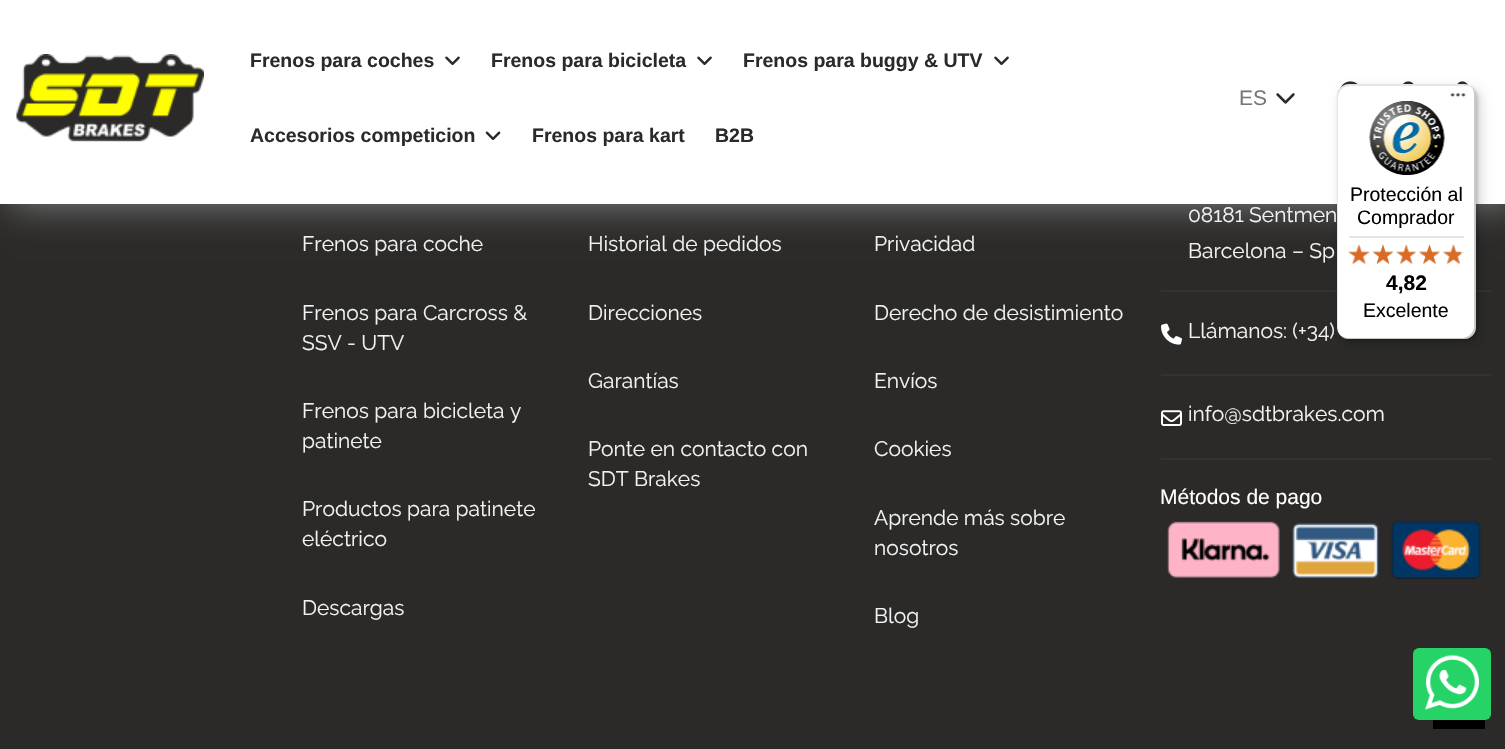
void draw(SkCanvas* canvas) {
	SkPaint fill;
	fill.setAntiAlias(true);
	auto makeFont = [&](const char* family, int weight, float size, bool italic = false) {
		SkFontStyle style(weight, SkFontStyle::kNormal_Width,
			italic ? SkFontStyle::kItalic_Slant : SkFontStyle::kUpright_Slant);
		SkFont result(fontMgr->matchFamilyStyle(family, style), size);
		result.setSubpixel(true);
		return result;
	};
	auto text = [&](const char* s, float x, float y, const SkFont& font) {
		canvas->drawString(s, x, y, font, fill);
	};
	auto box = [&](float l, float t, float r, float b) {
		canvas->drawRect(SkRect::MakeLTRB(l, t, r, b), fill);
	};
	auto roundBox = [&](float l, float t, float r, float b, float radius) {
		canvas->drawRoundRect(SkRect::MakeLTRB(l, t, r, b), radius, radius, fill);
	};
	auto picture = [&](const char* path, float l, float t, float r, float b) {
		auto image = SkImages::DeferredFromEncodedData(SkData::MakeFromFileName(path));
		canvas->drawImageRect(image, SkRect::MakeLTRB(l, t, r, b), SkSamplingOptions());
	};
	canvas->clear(0xFF2B2A29);
	fill.setColor(0xFF888888);
	fill.setMaskFilter(SkMaskFilter::MakeBlur(kNormal_SkBlurStyle, 19));
	canvas->drawRect(SkRect::MakeLTRB(9, -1, 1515, 203), fill);
	fill.setMaskFilter(nullptr);
	fill.setColor(0xFFFFFFFF);
	box(0, 0, 1505, 204);
	picture("image0.png", 16, 54, 204, 142);
	picture("image1.png", 445, 56, 460, 65);
	picture("image1.png", 697, 56, 712, 65);
	picture("image1.png", 994, 56, 1009, 65);
	picture("image2.png", 485, 131, 501, 140);
	picture("image3.png", 1339, 81, 1358, 90);
	picture("image4.png", 1403, 81, 1414, 84);
	picture("image5.png", 1457, 81, 1468, 85);
	picture("image6.png", 1276, 93, 1295, 104);
	fill.setColor(0xFF323231);
	box(1161, 290, 1491, 292);
	picture("image7.png", 1161, 323, 1182, 345);
	box(1161, 374, 1491, 376);
	picture("image8.png", 1161, 410, 1182, 426);
	box(1161, 458, 1491, 460);
	picture("image9.png", 1167, 520, 1481, 579);
	fill.setColor(0x26000000);
	fill.setMaskFilter(SkMaskFilter::MakeBlur(kNormal_SkBlurStyle, 6));
	canvas->drawRoundRect(SkRect::MakeLTRB(1341, 89, 1481, 344), 12, 12, fill);
	fill.setMaskFilter(nullptr);
	fill.setMaskFilter(SkMaskFilter::MakeBlur(kNormal_SkBlurStyle, 1.5f));
	canvas->drawRoundRect(SkRect::MakeLTRB(1338, 86, 1478, 341), 12, 12, fill);
	fill.setMaskFilter(nullptr);
	fill.setColor(0xFFFFFFFF);
	roundBox(1337, 84, 1476, 339, 12);
	fill.setColor(0x1A000000);
	canvas->drawPath(SkPathBuilder().moveTo(1350, 86).lineTo(1466, 86).cubicTo(1469, 86, 1471, 87, 1474, 89).cubicTo(1471, 86, 1468, 84, 1464, 84).lineTo(1349, 84).cubicTo(1342, 84, 1337, 89, 1337, 96).lineTo(1337, 327).cubicTo(1337, 330, 1338, 333, 1340, 335).cubicTo(1339, 333, 1338, 331, 1338, 328).lineTo(1338, 98).cubicTo(1338, 91, 1343, 86, 1350, 86).close().detach(), fill);
	fill.setColor(0x33000000);
	canvas->drawPath(SkPathBuilder().moveTo(1343, 337).cubicTo(1344, 338, 1347, 339, 1349, 339).lineTo(1464, 339).cubicTo(1471, 339, 1476, 334, 1476, 327).lineTo(1476, 96).cubicTo(1476, 92, 1474, 89, 1471, 86).cubicTo(1473, 89, 1474, 91, 1474, 94).lineTo(1474, 326).cubicTo(1474, 332, 1469, 338, 1462, 338).lineTo(1347, 338).close().detach(), fill);
	fill.setColor(0x33323232);
	canvas->drawPath(SkPathBuilder().moveTo(1341, 336).cubicTo(1343, 338, 1346, 339, 1349, 339).lineTo(1464, 339).cubicTo(1471, 339, 1476, 334, 1476, 327).lineTo(1476, 96).cubicTo(1476, 93, 1475, 90, 1473, 88).cubicTo(1474, 90, 1475, 92, 1475, 95).lineTo(1475, 326).cubicTo(1475, 333, 1470, 338, 1463, 338).lineTo(1348, 338).cubicTo(1345, 338, 1343, 337, 1341, 336).close().detach(), fill);
	fill.setColor(0x4DFFFFFF);
	canvas->drawPath(SkPathBuilder().moveTo(1341, 336).cubicTo(1343, 338, 1346, 339, 1349, 339).lineTo(1464, 339).cubicTo(1471, 339, 1476, 334, 1476, 327).lineTo(1476, 96).cubicTo(1476, 92, 1474, 89, 1472, 87).cubicTo(1474, 89, 1475, 92, 1475, 95).lineTo(1475, 326).cubicTo(1475, 333, 1470, 338, 1463, 338).lineTo(1348, 338).cubicTo(1345, 338, 1343, 337, 1341, 336).close().detach(), fill);
	picture("image10.png", 1450, 93, 1466, 97);
	picture("image11.png", 1369, 101, 1445, 176);
	fill.setColor(0xFFE5E5E5);
	box(1349, 236, 1464, 238);
	picture("image12.png", 1348, 245, 1370, 264);
	picture("image13.png", 1373, 244, 1393, 264);
	picture("image14.png", 1396, 245, 1416, 264);
	picture("image15.png", 1419, 244, 1440, 264);
	picture("image16.png", 1443, 245, 1464, 264);
	picture("image17.png", 1348, 244, 1370, 264);
	picture("image18.png", 1373, 244, 1393, 264);
	picture("image19.png", 1396, 244, 1416, 264);
	picture("image20.png", 1419, 244, 1440, 264);
	picture("image21.png", 1443, 244, 1461, 264);
	fill.setColor(0xFF25D366);
	roundBox(1413, 648, 1491, 720, 6);
	picture("image22.png", 1425, 655, 1479, 710);
	fill.setColor(0xFF000000);
	box(1433, 720, 1485, 729);
	auto font1 = makeFont("Liberation Sans", 700, 19.5f);
	fill.setColor(0xFF2B2A29);
	text("Frenos para coches", 250, 67, font1);
	text("Frenos para bicicleta", 491, 67, font1);
	text("Frenos para buggy & UTV", 743, 67, font1);
	text("Accesorios competicion", 250, 142, font1);
	text("Frenos para kart", 532, 142, font1);
	text("B2B", 715, 142, font1);
	auto font2 = makeFont("Liberation Sans", 400, 21);
	fill.setColor(0xFF777777);
	text("ES", 1239, 105, font2);
	auto font3 = makeFont("Raleway", 400, 21);
	fill.setColor(0xFFF2F2F2);
	text("Frenos para coche", 302, 251, font3);
	text("Frenos para Carcross &", 302, 320, font3);
	text("SSV - UTV", 302, 350, font3);
	text("Frenos para bicicleta y", 302, 418, font3);
	text("patinete", 302, 448, font3);
	text("Productos para patinete", 302, 516, font3);
	text("eléctrico", 302, 546, font3);
	text("Descargas", 302, 615, font3);
	text("Historial de pedidos", 588, 251, font3);
	text("Direcciones", 588, 320, font3);
	text("Garantías", 588, 388, font3);
	text("Ponte en contacto con", 588, 456, font3);
	text("SDT Brakes", 588, 486, font3);
	text("Privacidad", 874, 251, font3);
	text("Derecho de desistimiento", 874, 320, font3);
	text("Envíos", 874, 388, font3);
	text("Cookies", 874, 456, font3);
	text("Aprende más sobre", 874, 525, font3);
	text("nosotros", 874, 555, font3);
	text("Blog", 874, 623, font3);
	text("08181 Sentmen", 1188, 222, font3);
	text("Barcelona – Sp", 1188, 258, font3);
	text("Llámanos: (+34)", 1188, 338, font3);
	text("info@sdtbrakes.com", 1188, 421, font3);
	fill.setColor(0xFFFFFFFF);
	text("Métodos de pago", 1160, 504, font2);
	auto font4 = makeFont("Liberation Sans", 400, 19.5f);
	fill.setColor(0xFF000000);
	text("Protección al", 1350, 201, font4);
	text("Comprador", 1357, 224, font4);
	auto font5 = makeFont("Liberation Sans", 700, 21);
	text("4,82", 1386, 290, font5);
	text("Excelente", 1363, 317, font4);
}
